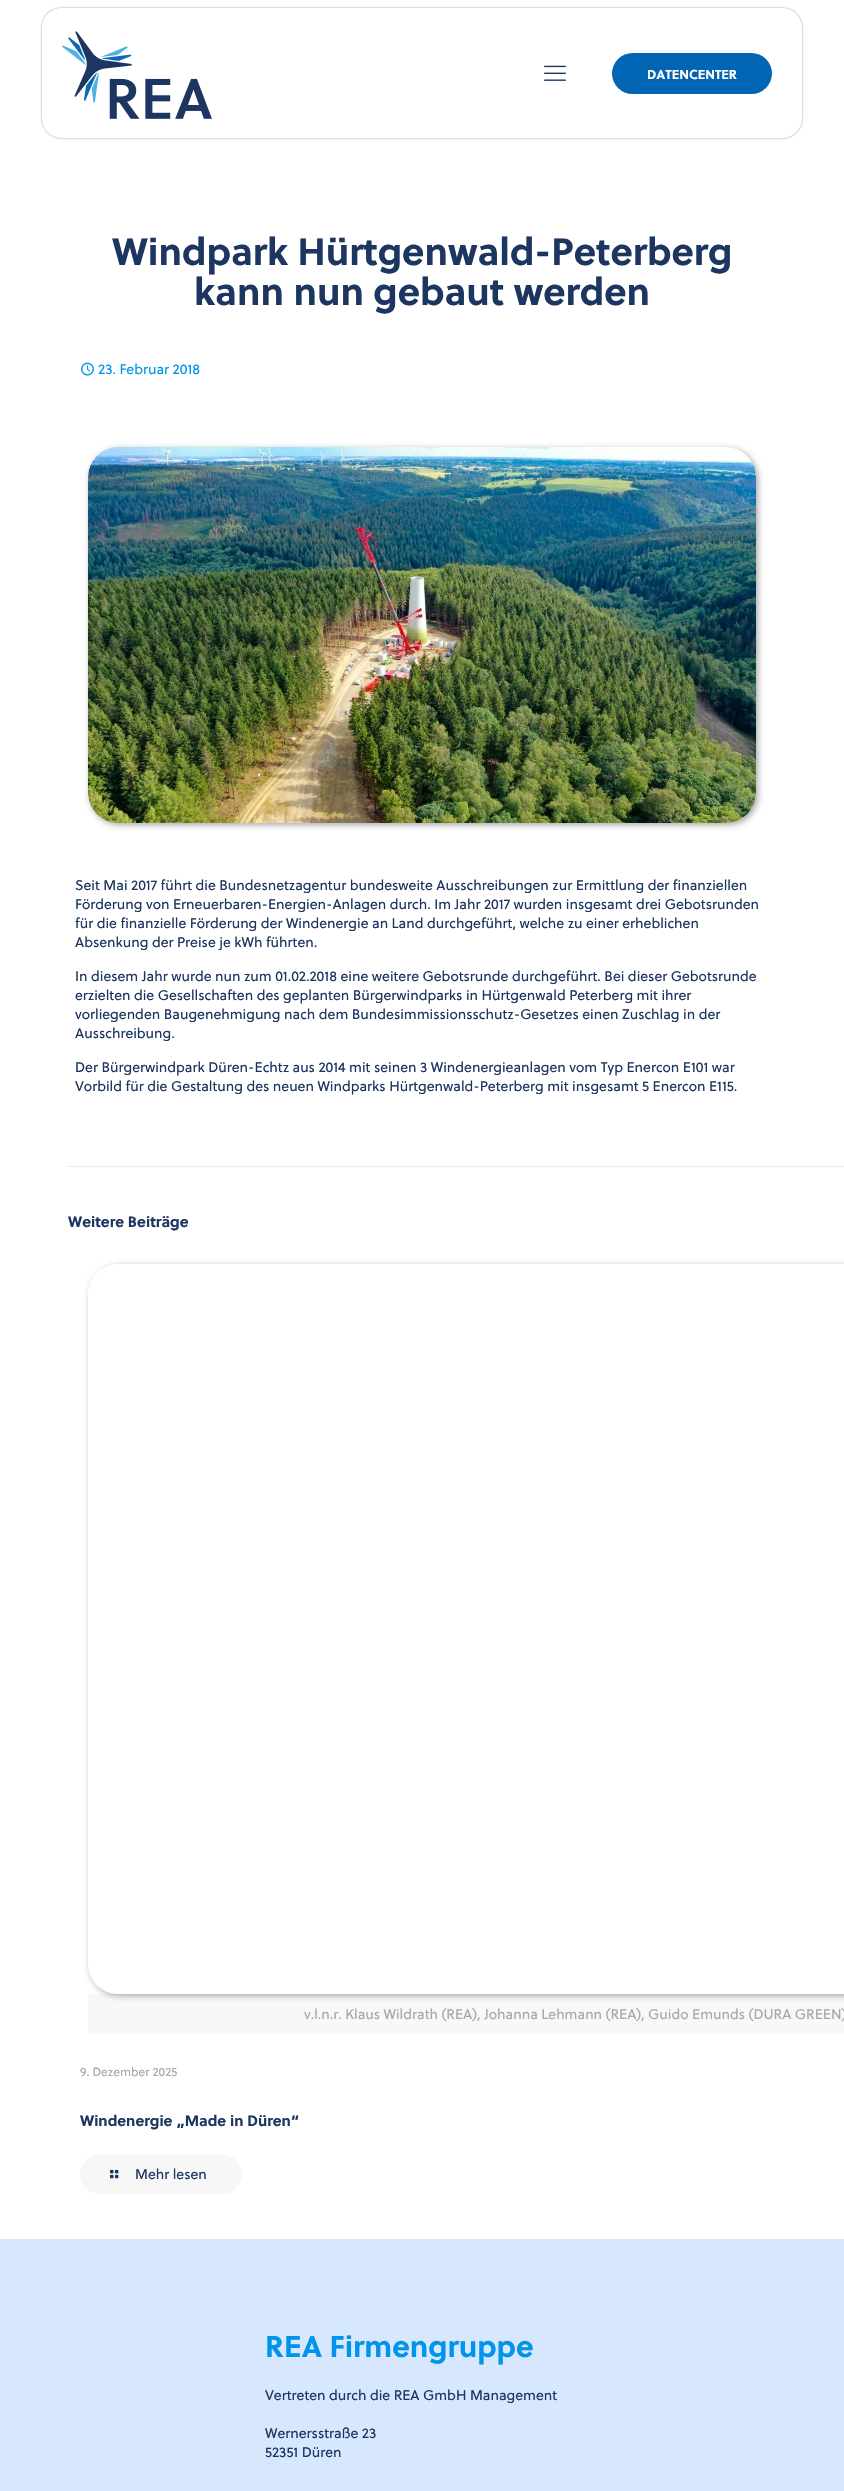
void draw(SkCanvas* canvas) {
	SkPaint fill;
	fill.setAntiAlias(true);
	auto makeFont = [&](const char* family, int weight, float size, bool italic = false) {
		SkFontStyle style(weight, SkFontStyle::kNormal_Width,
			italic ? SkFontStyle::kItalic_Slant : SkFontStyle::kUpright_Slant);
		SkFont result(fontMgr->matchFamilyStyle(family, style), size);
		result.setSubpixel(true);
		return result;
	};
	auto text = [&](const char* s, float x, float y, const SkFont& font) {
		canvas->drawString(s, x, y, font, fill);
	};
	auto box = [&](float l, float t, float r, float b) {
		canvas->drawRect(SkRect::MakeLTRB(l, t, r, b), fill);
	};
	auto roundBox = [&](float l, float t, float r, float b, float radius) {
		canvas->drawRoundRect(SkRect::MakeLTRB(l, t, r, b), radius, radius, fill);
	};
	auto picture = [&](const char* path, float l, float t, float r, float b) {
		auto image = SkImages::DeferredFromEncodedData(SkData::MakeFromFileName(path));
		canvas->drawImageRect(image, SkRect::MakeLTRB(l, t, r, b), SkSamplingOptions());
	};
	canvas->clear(0xFFFFFFFF);
	canvas->save();
	canvas->clipPath(SkPathBuilder(SkPathFillType::kEvenOdd).moveTo(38, 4).lineTo(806, 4).lineTo(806, 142).lineTo(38, 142).close().moveTo(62, 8).lineTo(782, 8).cubicTo(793, 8, 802, 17, 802, 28).lineTo(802, 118).cubicTo(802, 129, 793, 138, 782, 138).lineTo(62, 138).cubicTo(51, 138, 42, 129, 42, 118).lineTo(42, 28).cubicTo(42, 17, 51, 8, 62, 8).close().detach(), true);
	fill.setColor(0x80000000);
	fill.setMaskFilter(SkMaskFilter::MakeBlur(kNormal_SkBlurStyle, 1));
	canvas->drawRoundRect(SkRect::MakeLTRB(42, 8, 802, 138), 20, 20, fill);
	fill.setMaskFilter(nullptr);
	canvas->restore();
	fill.setColor(0xBFFFFFFF);
	roundBox(42, 8, 802, 138, 20);
	picture("image0.png", 62, 31, 212, 119);
	picture("image1.png", 544, 65, 566, 81);
	fill.setColor(0xFF0265B3);
	roundBox(612, 53, 772, 94, 20.5f);
	picture("image2.png", 81, 362, 94, 376);
	fill.setColor(0xFFA9A9A9);
	fill.setMaskFilter(SkMaskFilter::MakeBlur(kNormal_SkBlurStyle, 3));
	canvas->drawRoundRect(SkRect::MakeLTRB(90, 449, 758, 825), 30, 30, fill);
	fill.setMaskFilter(nullptr);
	picture("image3.png", 88, 447, 756, 823);
	fill.setColor(0xFFEBEBEB);
	box(68, 1166, 844, 1167);
	fill.setColor(0xFFF8F8F8);
	box(88, 1994, 844, 2034);
	canvas->save();
	canvas->clipPath(SkPathBuilder(SkPathFillType::kEvenOdd).moveTo(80, 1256).lineTo(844, 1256).lineTo(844, 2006).lineTo(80, 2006).close().moveTo(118, 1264).lineTo(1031, 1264).cubicTo(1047.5f, 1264, 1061, 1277.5f, 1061, 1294).lineTo(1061, 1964).cubicTo(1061, 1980.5f, 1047.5f, 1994, 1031, 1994).lineTo(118, 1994).cubicTo(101.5f, 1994, 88, 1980.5f, 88, 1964).lineTo(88, 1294).cubicTo(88, 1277.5f, 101.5f, 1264, 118, 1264).close().detach(), true);
	fill.setColor(0xFFA9A9A9);
	fill.setMaskFilter(SkMaskFilter::MakeBlur(kNormal_SkBlurStyle, 3));
	canvas->drawRoundRect(SkRect::MakeLTRB(90, 1266, 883, 1996), 30, 30, fill);
	fill.setMaskFilter(nullptr);
	canvas->restore();
	fill.setColor(0xFFF7F7F7);
	roundBox(80, 2155, 242, 2194, 19.5f);
	picture("image4.png", 110, 2169, 119, 2179);
	fill.setColor(0xFFD7E7FD);
	box(0, 2239, 844, 2491);
	auto font1 = makeFont("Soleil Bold", 700, 13);
	fill.setColor(0xFFFFFFFF);
	text("DATENCENTER", 647, 79, font1);
	auto font2 = makeFont("Soleil Bold", 700, 38);
	fill.setColor(0xFF1D3661);
	text("Windpark Hürtgenwald-Peterberg", 112, 265, font2);
	text("kann nun gebaut werden", 194, 305, font2);
	auto font3 = makeFont("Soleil", 400, 14);
	fill.setColor(0xFF0095EB);
	text("23. Februar 2018", 98, 374, font3);
	fill.setColor(0xFF1D3661);
	text("Seit Mai 2017 führt die Bundesnetzagentur bundesweite Ausschreibungen zur Ermittlung der finanziellen", 75, 890, font3);
	text("Förderung von Erneuerbaren-Energien-Anlagen durch. Im Jahr 2017 wurden insgesamt drei Gebotsrunden", 75, 909, font3);
	text("für die finanzielle Förderung der Windenergie an Land durchgeführt, welche zu einer erheblichen", 75, 928, font3);
	text("Absenkung der Preise je kWh führten.", 75, 947, font3);
	text("In diesem Jahr wurde nun zum 01.02.2018 eine weitere Gebotsrunde durchgeführt. Bei dieser Gebotsrunde", 75, 981, font3);
	text("erzielten die Gesellschaften des geplanten Bürgerwindparks in Hürtgenwald Peterberg mit ihrer", 75, 1000, font3);
	text("vorliegenden Baugenehmigung nach dem Bundesimmissionsschutz-Gesetzes einen Zuschlag in der", 75, 1019, font3);
	text("Ausschreibung.", 75, 1038, font3);
	text("Der Bürgerwindpark Düren-Echtz aus 2014 mit seinen 3 Windenergieanlagen vom Typ Enercon E101 war", 75, 1072, font3);
	text("Vorbild für die Gestaltung des neuen Windparks Hürtgenwald-Peterberg mit insgesamt 5 Enercon E115.", 75, 1091, font3);
	auto font4 = makeFont("Soleil Bold", 700, 15);
	text("Weitere Beiträge", 68, 1227, font4);
	fill.setColor(0xFFA8A8A8);
	text("v.l.n.r. Klaus Wildrath (REA), Johanna Lehmann (REA), Guido Emunds (DURA GREEN)", 304, 2019, font3);
	auto font5 = makeFont("Soleil", 400, 12);
	text("9. Dezember 2025", 80, 2076, font5);
	fill.setColor(0xFF1D3661);
	text("Windenergie „Made in Düren“", 80, 2126, font4);
	text("Mehr lesen", 135, 2179, font3);
	auto font6 = makeFont("Soleil Bold", 700, 30);
	fill.setColor(0xFF0095EB);
	text("REA Firmengruppe", 265, 2357, font6);
	fill.setColor(0xFF1D3661);
	text("Vertreten durch die REA GmbH Management", 265, 2400, font3);
	text("Wernersstraße 23", 265, 2438, font3);
	text("52351 Düren", 265, 2457, font3);
}
